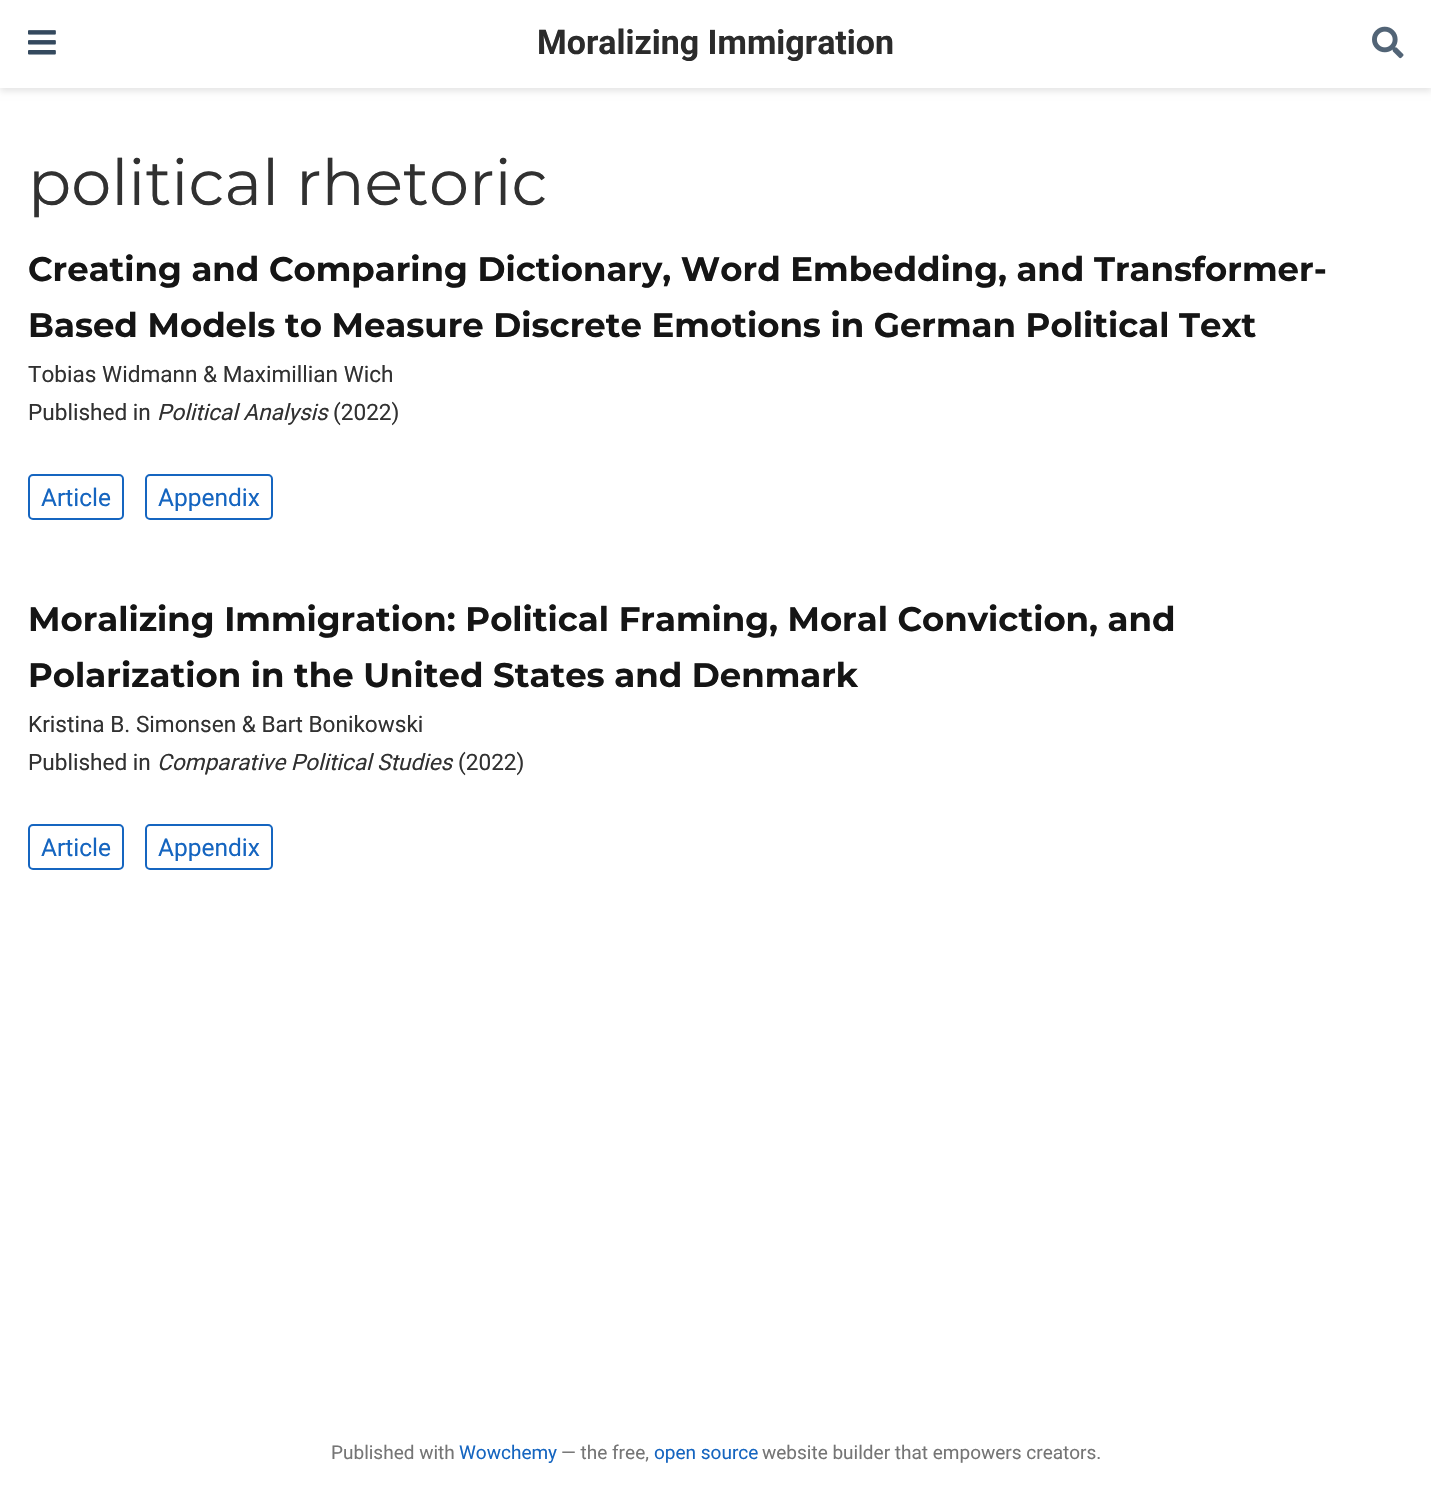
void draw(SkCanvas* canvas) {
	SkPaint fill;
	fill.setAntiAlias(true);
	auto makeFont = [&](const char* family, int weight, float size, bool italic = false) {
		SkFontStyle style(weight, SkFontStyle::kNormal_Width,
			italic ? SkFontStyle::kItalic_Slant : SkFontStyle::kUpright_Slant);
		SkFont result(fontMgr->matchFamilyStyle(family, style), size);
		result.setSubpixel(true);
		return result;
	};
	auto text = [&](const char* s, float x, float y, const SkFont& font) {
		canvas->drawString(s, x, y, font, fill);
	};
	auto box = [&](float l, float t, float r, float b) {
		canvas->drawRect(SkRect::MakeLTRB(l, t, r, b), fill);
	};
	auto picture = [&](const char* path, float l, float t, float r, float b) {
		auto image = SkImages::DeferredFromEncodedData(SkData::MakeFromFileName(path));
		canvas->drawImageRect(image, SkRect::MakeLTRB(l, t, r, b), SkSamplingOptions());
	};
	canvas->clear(0xFFFFFFFF);
	fill.setColor(0x1C000000);
	fill.setMaskFilter(SkMaskFilter::MakeBlur(kNormal_SkBlurStyle, 3.5f));
	canvas->drawRect(SkRect::MakeLTRB(0, 4, 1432, 91), fill);
	fill.setMaskFilter(nullptr);
	fill.setColor(0xFFFFFFFF);
	box(0, 0, 1431, 88);
	picture("image0.png", 28, 30, 56, 55);
	picture("image1.png", 1372, 26, 1404, 59);
	fill.setStyle(SkPaint::kStroke_Style);
	fill.setStrokeWidth(2);
	fill.setColor(0xFF1565C0);
	canvas->drawRoundRect(SkRect::MakeLTRB(29, 475, 123, 519), 4, 4, fill);
	canvas->drawRoundRect(SkRect::MakeLTRB(146, 475, 272, 519), 4, 4, fill);
	canvas->drawRoundRect(SkRect::MakeLTRB(29, 825, 123, 869), 4, 4, fill);
	canvas->drawRoundRect(SkRect::MakeLTRB(146, 825, 272, 869), 4, 4, fill);
	auto font1 = makeFont("Roboto", 700, 33.95f);
	fill.setStyle(SkPaint::kFill_Style);
	fill.setColor(0xFF2B2B2B);
	text("Moralizing Immigration", 537, 54, font1);
	auto font2 = makeFont("Montserrat", 400, 63.75f);
	fill.setColor(0xFF313131);
	text("political rhetoric", 28, 205, font2);
	auto font3 = makeFont("Montserrat", 700, 33.95f);
	fill.setColor(0xFF151515);
	text("Creating and Comparing Dictionary, Word Embedding, and Transformer-", 28, 281, font3);
	text("Based Models to Measure Discrete Emotions in German Political Text", 28, 337, font3);
	auto font4 = makeFont("Roboto", 400, 22.6f);
	fill.setColor(0xFF313131);
	text("Tobias Widmann & Maximillian Wich", 28, 382, font4);
	text("Published in", 28, 420, font4);
	auto font5 = makeFont("Roboto", 400, 22.6f, true);
	text("Political Analysis", 157, 420, font5);
	text("(2022)", 333, 420, font4);
	auto font6 = makeFont("Roboto", 400, 24.5f);
	fill.setColor(0xFF1565C0);
	text("Article", 41, 506, font6);
	text("Appendix", 158, 506, font6);
	fill.setColor(0xFF151515);
	text("Moralizing Immigration: Political Framing, Moral Conviction, and", 28, 631, font3);
	text("Polarization in the United States and Denmark", 28, 687, font3);
	fill.setColor(0xFF313131);
	text("Kristina B. Simonsen & Bart Bonikowski", 28, 732, font4);
	text("Published in", 28, 770, font4);
	text("Comparative Political Studies", 157, 770, font5);
	text("(2022)", 458, 770, font4);
	fill.setColor(0xFF1565C0);
	text("Article", 41, 856, font6);
	text("Appendix", 158, 856, font6);
	auto font7 = makeFont("Roboto", 400, 19);
	fill.setColor(0xFF757575);
	text("Published with", 331, 1459, font7);
	fill.setColor(0xFF1565C0);
	text("Wowchemy", 459, 1459, font7);
	fill.setColor(0xFF757575);
	text("— the free,", 561, 1459, font7);
	fill.setColor(0xFF1565C0);
	text("open source", 654, 1459, font7);
	fill.setColor(0xFF757575);
	text("website builder that empowers creators.", 762, 1459, font7);
}
